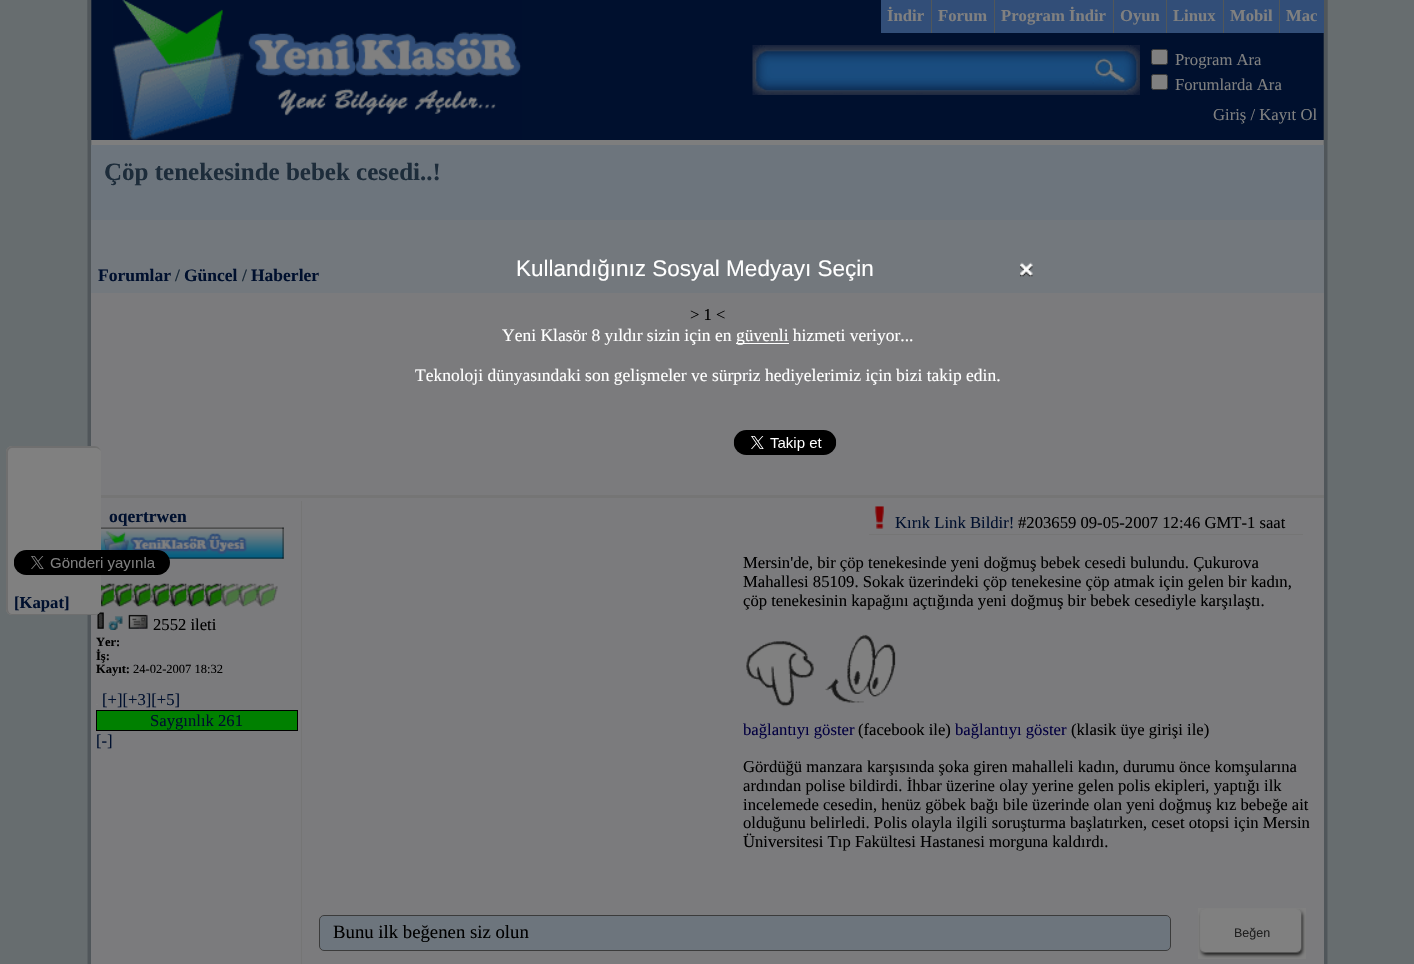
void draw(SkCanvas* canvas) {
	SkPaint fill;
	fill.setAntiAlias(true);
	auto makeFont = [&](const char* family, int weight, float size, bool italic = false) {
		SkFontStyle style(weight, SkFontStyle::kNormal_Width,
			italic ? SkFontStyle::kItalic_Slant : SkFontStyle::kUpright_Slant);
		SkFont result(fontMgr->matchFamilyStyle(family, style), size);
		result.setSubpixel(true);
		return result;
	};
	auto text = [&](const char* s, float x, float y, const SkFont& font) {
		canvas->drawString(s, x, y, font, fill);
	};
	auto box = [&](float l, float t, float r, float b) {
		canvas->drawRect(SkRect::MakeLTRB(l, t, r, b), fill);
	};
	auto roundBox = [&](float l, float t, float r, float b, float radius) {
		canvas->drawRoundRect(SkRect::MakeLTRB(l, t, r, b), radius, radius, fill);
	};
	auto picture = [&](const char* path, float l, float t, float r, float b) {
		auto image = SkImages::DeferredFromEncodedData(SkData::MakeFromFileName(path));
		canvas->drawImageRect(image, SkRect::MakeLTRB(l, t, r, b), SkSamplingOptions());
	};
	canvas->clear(0xFF676D6F);
	picture("image1.png", 87, 0, 1328, 964);
	fill.setColor(0xFF7B7B7D);
	box(91, 293, 1324, 964);
	picture("image7.png", 97, 612, 104, 629);
	fill.setColor(0xFF808080);
	roundBox(6, 446, 101, 615, 6);
	fill.setColor(0xFF6F6F6F);
	canvas->drawPath(SkPathBuilder(SkPathFillType::kEvenOdd).moveTo(12, 446).lineTo(95, 446).cubicTo(98, 446, 101, 449, 101, 452).lineTo(101, 609).cubicTo(101, 612, 98, 615, 95, 615).lineTo(12, 615).cubicTo(9, 615, 6, 612, 6, 609).lineTo(6, 452).cubicTo(6, 449, 9, 446, 12, 446).close().moveTo(12, 448).lineTo(95, 448).cubicTo(98, 448, 101, 450, 101, 452).lineTo(101, 609).cubicTo(101, 612, 98, 614, 95, 614).lineTo(12, 614).cubicTo(10, 614, 8, 612, 8, 609).lineTo(8, 452).cubicTo(8, 450, 10, 448, 12, 448).close().detach(), fill);
	picture("image5.png", 101, 527, 284, 559);
	picture("image0.png", 14, 550, 170, 575);
	picture("image2.png", 87, 0, 1328, 140);
	picture("image3.png", 112, 0, 522, 140);
	fill.setColor(0xFF324E78);
	box(881, 0, 994, 33);
	fill.setColor(0xFF51575A);
	box(931, 0, 932, 33);
	box(994, 0, 995, 33);
	fill.setColor(0xFF324E78);
	box(995, 0, 1113, 33);
	fill.setColor(0xFF51575A);
	box(1113, 0, 1114, 33);
	fill.setColor(0xFF324E78);
	box(1114, 0, 1223, 33);
	fill.setColor(0xFF51575A);
	box(1166, 0, 1167, 33);
	box(1223, 0, 1224, 33);
	fill.setColor(0xFF324E78);
	box(1224, 0, 1279, 33);
	fill.setColor(0xFF51575A);
	box(1279, 0, 1280, 33);
	fill.setColor(0xFF324E78);
	box(1280, 0, 1324, 33);
	picture("image4.png", 752, 45, 1140, 95);
	fill.setColor(0xFF808080);
	canvas->drawRoundRect(SkRect::MakeLTRB(1151.5f, 49.5f, 1167.5f, 64.5f), 2, 2, fill);
	fill.setStyle(SkPaint::kStroke_Style);
	fill.setStrokeWidth(1);
	fill.setColor(0xFF3B3B3B);
	canvas->drawRoundRect(SkRect::MakeLTRB(1151.5f, 49.5f, 1167.5f, 64.5f), 2, 2, fill);
	fill.setStyle(SkPaint::kFill_Style);
	fill.setColor(0xFF808080);
	canvas->drawRoundRect(SkRect::MakeLTRB(1151.5f, 74.5f, 1167.5f, 89.5f), 2, 2, fill);
	fill.setStyle(SkPaint::kStroke_Style);
	fill.setColor(0xFF3B3B3B);
	canvas->drawRoundRect(SkRect::MakeLTRB(1151.5f, 74.5f, 1167.5f, 89.5f), 2, 2, fill);
	fill.setStyle(SkPaint::kFill_Style);
	fill.setColor(0xFF6D757D);
	box(91, 145, 1324, 220);
	fill.setColor(0xFF73787D);
	box(91, 220, 1324, 293);
	fill.setColor(0xFF757575);
	box(101, 495, 1324, 498);
	picture("image6.png", 101, 583, 278, 607);
	picture("image8.png", 108, 616, 123, 630);
	picture("image9.png", 128, 614, 148, 629);
	picture("image10.png", 96, 704, 98, 705);
	fill.setColor(0xFF008000);
	canvas->drawRect(SkRect::MakeLTRB(96.5f, 710.5f, 297.5f, 730.5f), fill);
	fill.setStyle(SkPaint::kStroke_Style);
	fill.setColor(0xFF000000);
	canvas->drawRect(SkRect::MakeLTRB(96.5f, 710.5f, 297.5f, 730.5f), fill);
	fill.setStyle(SkPaint::kFill_Style);
	fill.setColor(0xFF757575);
	box(301, 501, 302, 964);
	box(869, 534, 1303, 535);
	picture("image11.png", 874, 506, 884, 529);
	picture("image12.png", 746, 634, 896, 707);
	fill.setColor(0xFF6D757D);
	canvas->drawRoundRect(SkRect::MakeLTRB(319.5f, 915.5f, 1170.5f, 950.5f), 4.5f, 4.5f, fill);
	fill.setStyle(SkPaint::kStroke_Style);
	fill.setColor(0xFF3B3B3B);
	canvas->drawRoundRect(SkRect::MakeLTRB(319.5f, 915.5f, 1170.5f, 950.5f), 4.5f, 4.5f, fill);
	fill.setStyle(SkPaint::kFill_Style);
	fill.setColor(0xFF808080);
	box(1198, 908, 1306, 959);
	picture("image13.png", 1198, 908, 1306, 958);
	picture("image14.png", 1020, 262, 1033, 277);
	fill.setColor(0xFFFFFFFF);
	box(736, 343, 789, 344);
	picture("image15.png", 733, 430, 837, 455);
	auto font1 = makeFont("Liberation Serif", 700, 16.65f);
	fill.setColor(0xFF00102E);
	text("[Kapat]", 14, 608, font1);
	fill.setColor(0xFF808080);
	text("İndir", 887, 21, font1);
	text("Forum", 938, 21, font1);
	text("Program İndir", 1001, 21, font1);
	text("Oyun", 1120, 21, font1);
	text("Linux", 1173, 21, font1);
	text("Mobil", 1230, 21, font1);
	text("Mac", 1286, 21, font1);
	auto font2 = makeFont("Liberation Serif", 400, 16.65f);
	text("Program Ara", 1175, 65, font2);
	text("Forumlarda Ara", 1175, 90, font2);
	text("Giriş / Kayıt Ol", 1213, 120, font2);
	auto font3 = makeFont("Liberation Serif", 700, 25);
	fill.setColor(0xFF1D2C3A);
	text("Çöp tenekesinde bebek cesedi..!", 104, 180, font3);
	auto font4 = makeFont("Liberation Serif", 700, 17.5f);
	fill.setColor(0xFF00102E);
	text("Forumlar", 98, 281, font4);
	fill.setColor(0xFF1D2C3A);
	text("/", 175, 281, font4);
	fill.setColor(0xFF00102E);
	text("Güncel", 184, 281, font4);
	fill.setColor(0xFF1D2C3A);
	text("/", 242, 281, font4);
	fill.setColor(0xFF00102E);
	text("Haberler", 251, 281, font4);
	fill.setColor(0xFF000000);
	text("> 1 <", 690, 320, font2);
	fill.setColor(0xFF00102E);
	text("oqertrwen", 109, 522, font4);
	fill.setColor(0xFF000000);
	text("2552 ileti", 153, 630, font2);
	auto font5 = makeFont("Liberation Serif", 700, 12.5f);
	text("Yer:", 96, 646, font5);
	text("İş:", 96, 660, font5);
	text("Kayıt:", 96, 673, font5);
	auto font6 = makeFont("Liberation Serif", 400, 12.5f);
	text("24-02-2007 18:32", 133, 673, font6);
	fill.setColor(0xFF00102E);
	text("[+][+3][+5]", 102, 705, font2);
	text("Saygınlık 261", 150, 726, font2);
	text("[-]", 96, 746, font2);
	text("Kırık Link Bildir!", 895, 528, font2);
	fill.setColor(0xFF000000);
	text("#203659 09-05-2007 12:46 GMT-1 saat", 1018, 528, font2);
	text("Mersin'de, bir çöp tenekesinde yeni doğmuş bebek cesedi bulundu. Çukurova", 743, 568, font2);
	text("Mahallesi 85109. Sokak üzerindeki çöp tenekesine çöp atmak için gelen bir kadın,", 743, 587, font2);
	text("çöp tenekesinin kapağını açtığında yeni doğmuş bir bebek cesediyle karşılaştı.", 743, 606, font2);
	fill.setColor(0xFF030040);
	text("bağlantıyı göster", 743, 735, font2);
	fill.setColor(0xFF000000);
	text("(facebook ile)", 858, 735, font2);
	fill.setColor(0xFF030040);
	text("bağlantıyı göster", 955, 735, font2);
	fill.setColor(0xFF000000);
	text("(klasik üye girişi ile)", 1071, 735, font2);
	text("Gördüğü manzara karşısında şoka giren mahalleli kadın, durumu önce komşularına", 743, 772, font2);
	text("ardından polise bildirdi. İhbar üzerine olay yerine gelen polis ekipleri, yaptığı ilk", 743, 791, font2);
	text("incelemede cesedin, henüz göbek bağı bile üzerinde olan yeni doğmuş kız bebeğe ait", 743, 810, font2);
	text("olduğunu belirledi. Polis olayla ilgili soruşturma başlatırken, ceset otopsi için Mersin", 743, 828, font2);
	text("Üniversitesi Tıp Fakültesi Hastanesi morguna kaldırdı.", 743, 847, font2);
	auto font7 = makeFont("Liberation Serif", 400, 18.75f);
	text("Bunu ilk beğenen siz olun", 333, 938, font7);
	auto font8 = makeFont("Liberation Sans", 400, 12.5f);
	fill.setColor(0xFF202020);
	text("Beğen", 1234, 937, font8);
	auto font9 = makeFont("Liberation Sans", 400, 22.5f);
	fill.setColor(0xFFFFFFFF);
	text("Kullandığınız Sosyal Medyayı Seçin", 516, 276, font9);
	auto font10 = makeFont("Liberation Serif", 400, 17.5f);
	text("Yeni Klasör 8 yıldır sizin için en", 502, 341, font10);
	text("güvenli hizmeti veriyor...", 736, 341, font10);
	text("Teknoloji dünyasındaki son gelişmeler ve sürpriz hediyelerimiz için bizi takip edin.", 415, 381, font10);
}
